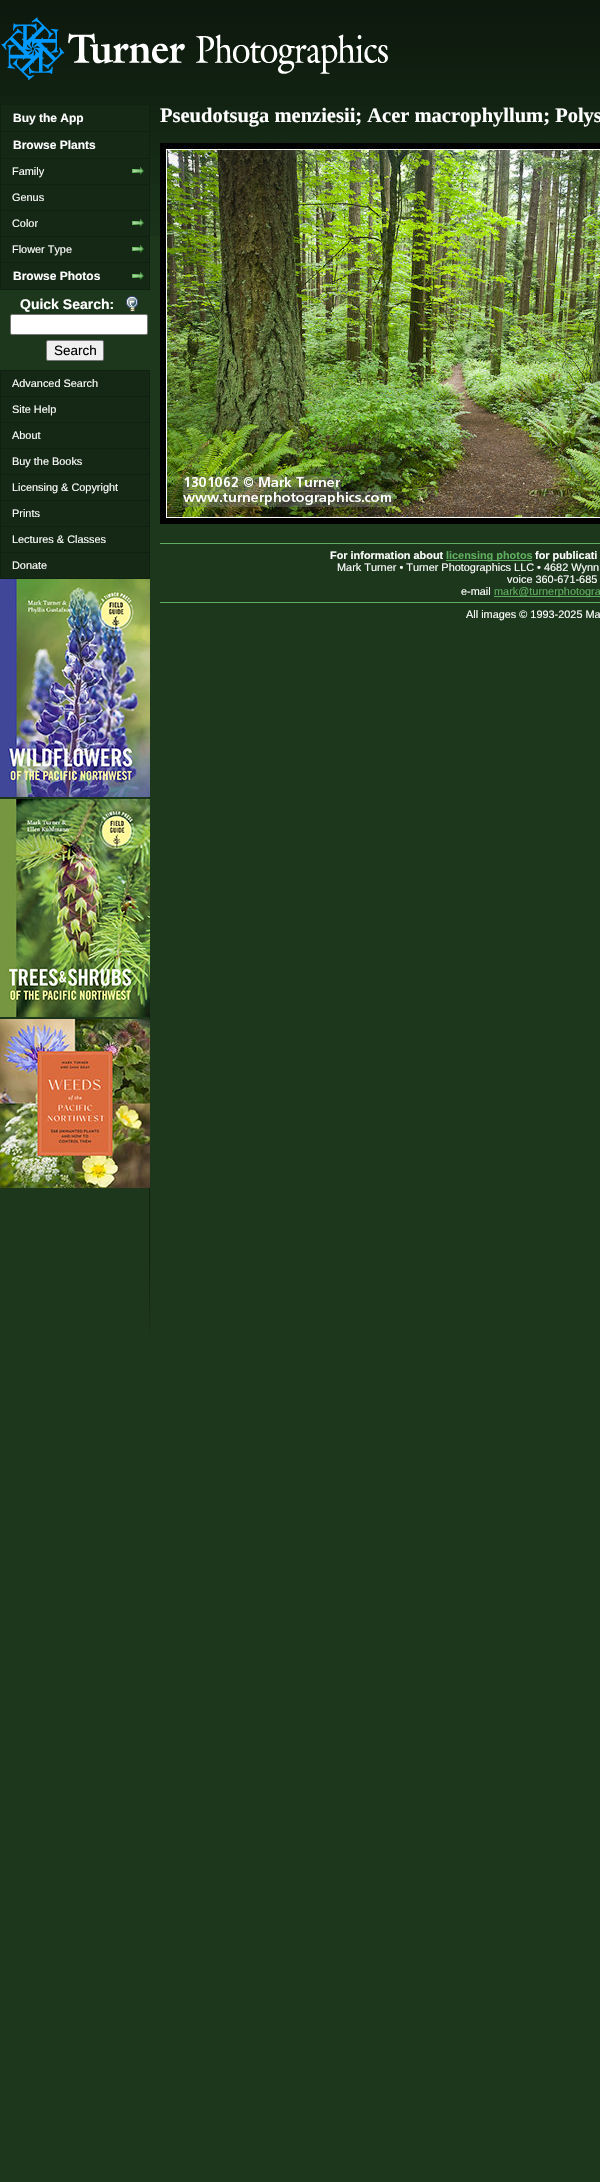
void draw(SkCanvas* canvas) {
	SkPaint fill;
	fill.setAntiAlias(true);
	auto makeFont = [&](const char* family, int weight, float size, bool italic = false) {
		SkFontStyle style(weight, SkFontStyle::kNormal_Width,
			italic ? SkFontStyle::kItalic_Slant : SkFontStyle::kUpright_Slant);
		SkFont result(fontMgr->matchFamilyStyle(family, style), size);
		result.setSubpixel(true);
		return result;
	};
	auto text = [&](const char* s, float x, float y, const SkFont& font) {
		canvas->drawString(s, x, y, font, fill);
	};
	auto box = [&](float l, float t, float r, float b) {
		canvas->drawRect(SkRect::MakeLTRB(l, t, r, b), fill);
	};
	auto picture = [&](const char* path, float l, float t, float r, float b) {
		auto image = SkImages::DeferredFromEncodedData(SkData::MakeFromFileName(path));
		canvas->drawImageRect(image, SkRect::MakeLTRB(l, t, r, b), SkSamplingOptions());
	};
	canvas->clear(0xFF1C371C);
	picture("image0.png", 0, 0, 600, 236);
	picture("image1.png", 1, 17, 388, 80);
	picture("image2.png", 149, 797, 150, 1332);
	fill.setColor(0xFF152815);
	box(1, 105, 149, 289);
	fill.setStyle(SkPaint::kStroke_Style);
	fill.setStrokeWidth(1);
	fill.setColor(0xFF112111);
	canvas->drawRect(SkRect::MakeLTRB(0.5f, 104.5f, 149.5f, 131.5f), fill);
	fill.setStyle(SkPaint::kFill_Style);
	box(149, 132, 150, 290);
	box(0, 158, 150, 159);
	box(0, 132, 1, 159);
	box(0, 184, 150, 185);
	box(0, 159, 1, 185);
	picture("image3.png", 132, 167, 144, 175);
	box(0, 210, 150, 211);
	box(0, 185, 1, 211);
	box(0, 236, 150, 237);
	box(0, 211, 1, 237);
	picture("image3.png", 132, 219, 144, 227);
	box(0, 262, 150, 263);
	box(0, 237, 1, 263);
	picture("image3.png", 132, 245, 144, 253);
	box(0, 289, 150, 290);
	box(0, 263, 1, 290);
	picture("image3.png", 132, 272, 144, 280);
	picture("image4.png", 126, 296, 138, 312);
	fill.setColor(0xFFFFFFFF);
	canvas->drawRoundRect(SkRect::MakeLTRB(10.5f, 314.5f, 147.5f, 334.5f), 1.5f, 1.5f, fill);
	fill.setStyle(SkPaint::kStroke_Style);
	fill.setColor(0xFF767676);
	canvas->drawRoundRect(SkRect::MakeLTRB(10.5f, 314.5f, 147.5f, 334.5f), 1.5f, 1.5f, fill);
	fill.setStyle(SkPaint::kFill_Style);
	fill.setColor(0xFFEFEFEF);
	canvas->drawRoundRect(SkRect::MakeLTRB(46.5f, 340.5f, 103.5f, 360.5f), 1.5f, 1.5f, fill);
	fill.setStyle(SkPaint::kStroke_Style);
	fill.setColor(0xFF767676);
	canvas->drawRoundRect(SkRect::MakeLTRB(46.5f, 340.5f, 103.5f, 360.5f), 1.5f, 1.5f, fill);
	fill.setStyle(SkPaint::kFill_Style);
	fill.setColor(0xFF152815);
	box(1, 371, 149, 578);
	fill.setStyle(SkPaint::kStroke_Style);
	fill.setColor(0xFF112111);
	canvas->drawRect(SkRect::MakeLTRB(0.5f, 370.5f, 149.5f, 396.5f), fill);
	fill.setStyle(SkPaint::kFill_Style);
	box(149, 397, 150, 579);
	box(0, 422, 150, 423);
	box(0, 397, 1, 423);
	box(0, 448, 150, 449);
	box(0, 423, 1, 449);
	box(0, 474, 150, 475);
	box(0, 449, 1, 475);
	box(0, 500, 150, 501);
	box(0, 475, 1, 501);
	box(0, 526, 150, 527);
	box(0, 501, 1, 527);
	box(0, 552, 150, 553);
	box(0, 527, 1, 553);
	box(0, 578, 150, 579);
	box(0, 553, 1, 579);
	picture("image5.png", 0, 579, 150, 797);
	picture("image6.png", 0, 799, 150, 1017);
	picture("image7.png", 0, 1019, 150, 1188);
	picture("image8.png", 160, 143, 600, 524);
	fill.setColor(0xFF60AF60);
	box(160, 543, 600, 544);
	box(446, 560, 532, 561);
	box(494, 596, 600, 597);
	box(160, 602, 600, 603);
	auto font1 = makeFont("Liberation Sans", 700, 12);
	fill.setColor(0xFFFFFFFF);
	text("Buy the App", 13, 122, font1);
	text("Browse Plants", 13, 149, font1);
	auto font2 = makeFont("Liberation Sans", 400, 10.9f);
	text("Family", 12, 175, font2);
	text("Genus", 12, 201, font2);
	text("Color", 12, 227, font2);
	text("Flower Type", 12, 253, font2);
	text("Browse Photos", 13, 280, font1);
	auto font3 = makeFont("Liberation Sans", 700, 14);
	text("Quick Search:", 20, 309, font3);
	auto font4 = makeFont("Liberation Sans", 400, 13.5f);
	fill.setColor(0xFF000000);
	text("Search", 54, 355, font4);
	fill.setColor(0xFFFFFFFF);
	text("Advanced Search", 12, 387, font2);
	text("Site Help", 12, 413, font2);
	text("About", 12, 439, font2);
	text("Buy the Books", 12, 465, font2);
	text("Licensing & Copyright", 12, 491, font2);
	text("Prints", 12, 517, font2);
	text("Lectures & Classes", 12, 543, font2);
	text("Donate", 12, 569, font2);
	auto font5 = makeFont("Liberation Serif", 700, 20.5f);
	text("Pseudotsuga menziesii; Acer macrophyllum; Polys", 160, 122, font5);
	auto font6 = makeFont("Liberation Sans", 700, 10.9f);
	text("For information about", 330, 559, font6);
	fill.setColor(0xFF60AF60);
	text("licensing photos", 446, 559, font6);
	fill.setColor(0xFFFFFFFF);
	text("for publicati", 535, 559, font6);
	text("Mark Turner • Turner Photographics LLC • 4682 Wynn", 337, 571, font2);
	text("voice 360-671-685", 507, 583, font2);
	text("e-mail", 461, 595, font2);
	fill.setColor(0xFF60AF60);
	text("mark@turnerphotogra", 494, 595, font2);
	fill.setColor(0xFFFFFFFF);
	text("All images © 1993-2025 Ma", 466, 618, font2);
}
